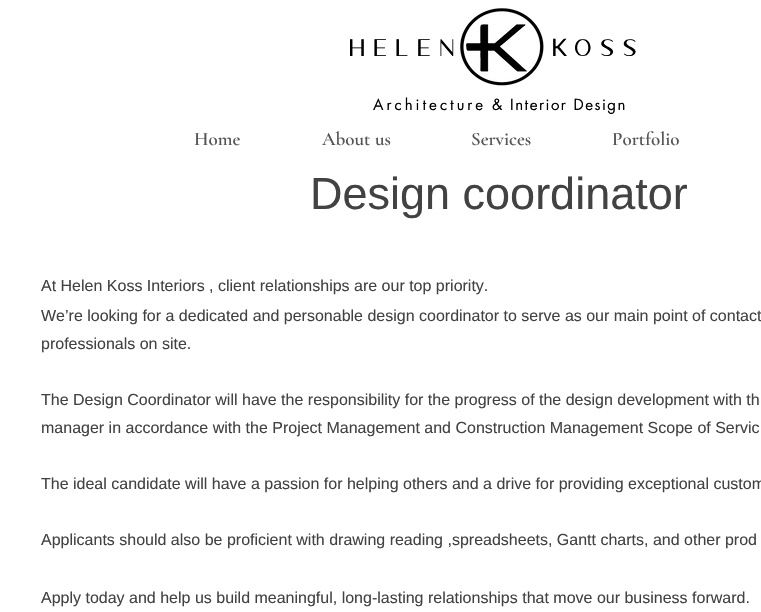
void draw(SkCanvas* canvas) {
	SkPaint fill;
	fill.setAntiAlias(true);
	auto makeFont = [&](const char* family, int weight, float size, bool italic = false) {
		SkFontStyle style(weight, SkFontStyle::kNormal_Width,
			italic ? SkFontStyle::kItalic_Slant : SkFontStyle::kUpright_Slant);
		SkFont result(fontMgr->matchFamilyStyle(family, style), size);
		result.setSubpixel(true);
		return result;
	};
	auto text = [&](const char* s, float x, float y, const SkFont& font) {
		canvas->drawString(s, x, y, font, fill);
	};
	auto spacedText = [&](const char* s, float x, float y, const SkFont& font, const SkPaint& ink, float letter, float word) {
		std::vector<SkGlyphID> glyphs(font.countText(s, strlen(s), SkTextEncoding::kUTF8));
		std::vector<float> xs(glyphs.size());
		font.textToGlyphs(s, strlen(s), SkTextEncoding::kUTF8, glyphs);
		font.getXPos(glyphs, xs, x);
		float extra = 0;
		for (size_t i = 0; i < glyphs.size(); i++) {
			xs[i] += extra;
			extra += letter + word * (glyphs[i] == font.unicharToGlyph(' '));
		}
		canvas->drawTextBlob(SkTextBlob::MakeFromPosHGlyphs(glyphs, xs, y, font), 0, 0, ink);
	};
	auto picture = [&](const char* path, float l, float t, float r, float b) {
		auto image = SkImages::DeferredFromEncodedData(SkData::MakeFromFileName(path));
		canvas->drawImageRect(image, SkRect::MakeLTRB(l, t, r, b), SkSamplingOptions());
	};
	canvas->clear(0xFFFFFFFF);
	picture("image0.png", 460, 8, 544, 86);
	auto font1 = makeFont("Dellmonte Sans", 400, 24);
	fill.setColor(0xFF000000);
	spacedText("HELEN", 350, 56, font1, fill, 8.5f, 0);
	auto font2 = makeFont("Lato", 400, 24);
	spacedText("K", 551, 56, font2, fill, 8.5f, 0);
	spacedText("OSS", 575, 56, font1, fill, 8.5f, 0);
	auto font3 = makeFont("futura", 400, 15);
	spacedText("Architecture", 373, 110, font3, fill, 3, 0);
	spacedText("& Interior Design", 492, 110, font3, fill, 1.5f, 0);
	auto font4 = makeFont("Cormorant Garamond", 600, 19);
	fill.setColor(0xFF555555);
	text("Home", 194, 145, font4);
	text("About us", 322, 145, font4);
	text("Services", 471, 145, font4);
	text("Portfolio", 612, 145, font4);
	auto font5 = makeFont("Liberation Sans", 400, 45);
	fill.setColor(0xFF424242);
	text("Design coordinator", 310, 209, font5);
	auto font6 = makeFont("Liberation Sans", 400, 16);
	text("At Helen Koss Interiors , client relationships are our top priority.", 41, 291, font6);
	text("We’re looking for a dedicated and personable design coordinator to serve as our main point of contact", 41, 321, font6);
	text("professionals on site.", 41, 349, font6);
	text("The Design Coordinator will have the responsibility for the progress of the design development with th", 41, 405, font6);
	text("manager in accordance with the Project Management and Construction Management Scope of Servic", 41, 433, font6);
	text("The ideal candidate will have a passion for helping others and a drive for providing exceptional custom", 41, 489, font6);
	text("Applicants should also be proficient with drawing reading ,spreadsheets, Gantt charts, and other prod", 41, 545, font6);
	text("Apply today and help us build meaningful, long-lasting relationships that move our business forward.", 41, 603, font6);
}
